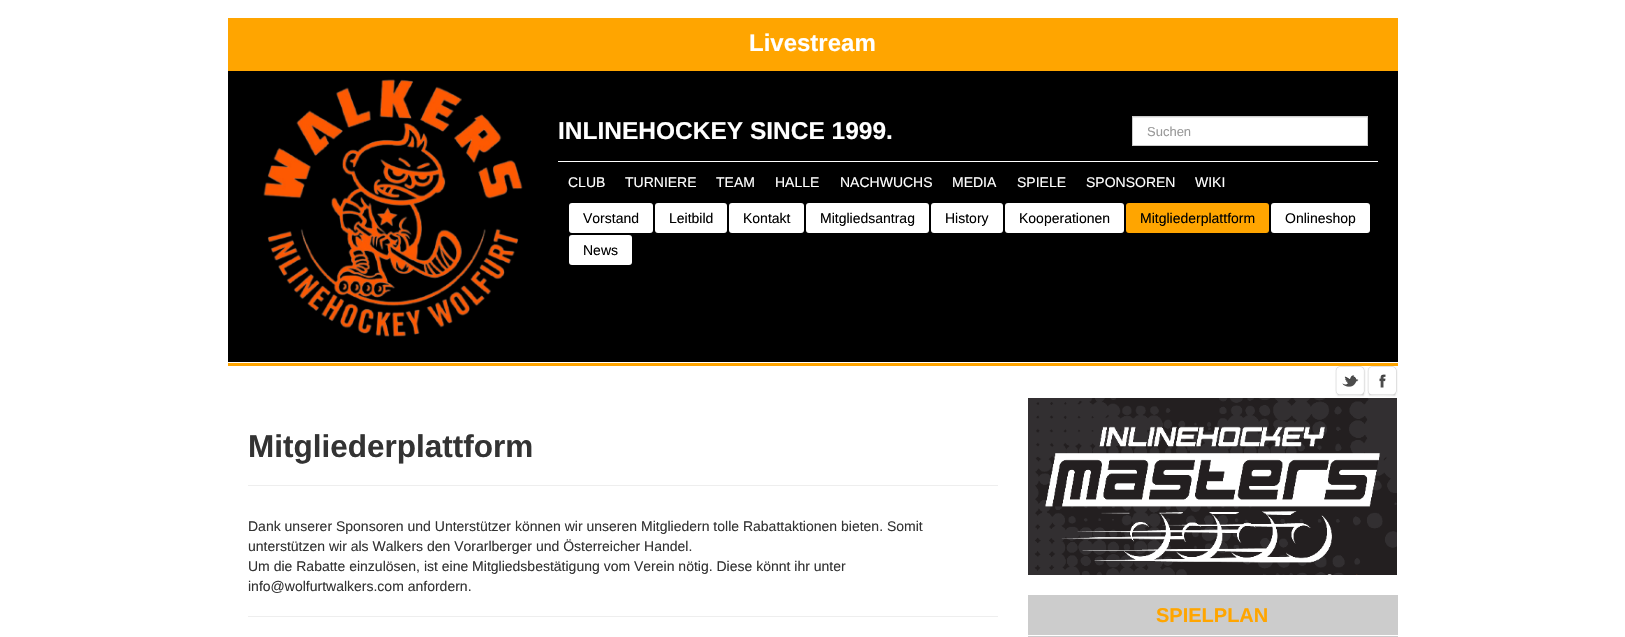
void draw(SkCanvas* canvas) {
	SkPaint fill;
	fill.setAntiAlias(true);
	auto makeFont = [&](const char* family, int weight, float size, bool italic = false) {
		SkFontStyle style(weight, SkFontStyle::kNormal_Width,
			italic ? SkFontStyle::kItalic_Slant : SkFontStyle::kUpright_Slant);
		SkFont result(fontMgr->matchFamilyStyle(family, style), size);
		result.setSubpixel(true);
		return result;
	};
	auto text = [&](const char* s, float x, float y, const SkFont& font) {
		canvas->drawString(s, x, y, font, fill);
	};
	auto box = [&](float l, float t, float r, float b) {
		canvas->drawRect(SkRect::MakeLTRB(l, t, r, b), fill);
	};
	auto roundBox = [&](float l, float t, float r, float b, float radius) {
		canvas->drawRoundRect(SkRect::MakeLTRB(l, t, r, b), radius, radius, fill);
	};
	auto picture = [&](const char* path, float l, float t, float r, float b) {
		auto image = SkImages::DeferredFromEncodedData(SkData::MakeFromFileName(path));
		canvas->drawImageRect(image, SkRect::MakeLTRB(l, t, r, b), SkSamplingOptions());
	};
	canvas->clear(0xFFFFFFFF);
	fill.setColor(0xFFFFA500);
	box(228, 18, 1398, 71);
	fill.setColor(0xFF000000);
	box(228, 71, 1398, 362);
	picture("image0.png", 263, 79, 523, 337);
	fill.setColor(0xFFFFFFFF);
	box(558, 161, 1378, 162);
	box(1133, 118, 1367, 145);
	fill.setColor(0xFFECECEC);
	box(1133, 117, 1367, 118);
	fill.setStyle(SkPaint::kStroke_Style);
	fill.setStrokeWidth(1);
	fill.setColor(0xFFCCCCCC);
	canvas->drawRect(SkRect::MakeLTRB(1132.5f, 116.5f, 1367.5f, 145.5f), fill);
	fill.setStyle(SkPaint::kFill_Style);
	fill.setColor(0xFFFFFFFF);
	roundBox(569, 203, 653, 233, 3);
	roundBox(655, 203, 727, 233, 3);
	roundBox(729, 203, 804, 233, 3);
	roundBox(806, 203, 929, 233, 3);
	roundBox(931, 203, 1003, 233, 3);
	roundBox(1005, 203, 1124, 233, 3);
	fill.setColor(0xFFFFA500);
	roundBox(1126, 203, 1269, 233, 3);
	fill.setColor(0xFFFFFFFF);
	roundBox(1271, 203, 1370, 233, 3);
	roundBox(569, 235, 632, 265, 3);
	fill.setColor(0xFFFFA500);
	box(228, 363, 1398, 366);
	fill.setColor(0xFFEEEEEE);
	box(248, 485, 998, 486);
	box(248, 616, 998, 617);
	picture("image1.png", 1335, 366, 1366, 397);
	picture("image2.png", 1367, 366, 1398, 397);
	picture("image3.png", 1028, 398, 1397, 575);
	fill.setColor(0xFFCCCCCC);
	box(1028, 595, 1398, 635);
	box(1028, 636, 1398, 637);
	auto font1 = makeFont("Liberation Sans", 700, 24);
	fill.setColor(0xFFFFFFFF);
	text("Livestream", 749, 51, font1);
	auto font2 = makeFont("Liberation Sans", 700, 24.5f);
	text("INLINEHOCKEY SINCE 1999.", 558, 139, font2);
	auto font3 = makeFont("Liberation Sans", 400, 13);
	fill.setColor(0xFF999999);
	text("Suchen", 1147, 136, font3);
	auto font4 = makeFont("Liberation Sans", 400, 14);
	fill.setColor(0xFFFFFFFF);
	text("CLUB", 568, 187, font4);
	text("TURNIERE", 625, 187, font4);
	text("TEAM", 716, 187, font4);
	text("HALLE", 775, 187, font4);
	text("NACHWUCHS", 840, 187, font4);
	text("MEDIA", 952, 187, font4);
	text("SPIELE", 1017, 187, font4);
	text("SPONSOREN", 1086, 187, font4);
	text("WIKI", 1195, 187, font4);
	fill.setColor(0xFF000000);
	text("Vorstand", 583, 223, font4);
	text("Leitbild", 669, 223, font4);
	text("Kontakt", 743, 223, font4);
	text("Mitgliedsantrag", 820, 223, font4);
	text("History", 945, 223, font4);
	text("Kooperationen", 1019, 223, font4);
	text("Mitgliederplattform", 1140, 223, font4);
	text("Onlineshop", 1285, 223, font4);
	text("News", 583, 255, font4);
	auto font5 = makeFont("Liberation Sans", 700, 31.5f);
	fill.setColor(0xFF333333);
	text("Mitgliederplattform", 248, 457, font5);
	text("Dank unserer Sponsoren und Unterstützer können wir unseren Mitgliedern tolle Rabattaktionen bieten. Somit", 248, 531, font4);
	text("unterstützen wir als Walkers den Vorarlberger und Österreicher Handel.", 248, 551, font4);
	text("Um die Rabatte einzulösen, ist eine Mitgliedsbestätigung vom Verein nötig. Diese könnt ihr unter", 248, 571, font4);
	text("info@wolfurtwalkers.com anfordern.", 248, 591, font4);
	auto font6 = makeFont("Liberation Sans", 700, 20);
	fill.setColor(0xFFFFA500);
	text("SPIELPLAN", 1156, 622, font6);
}
